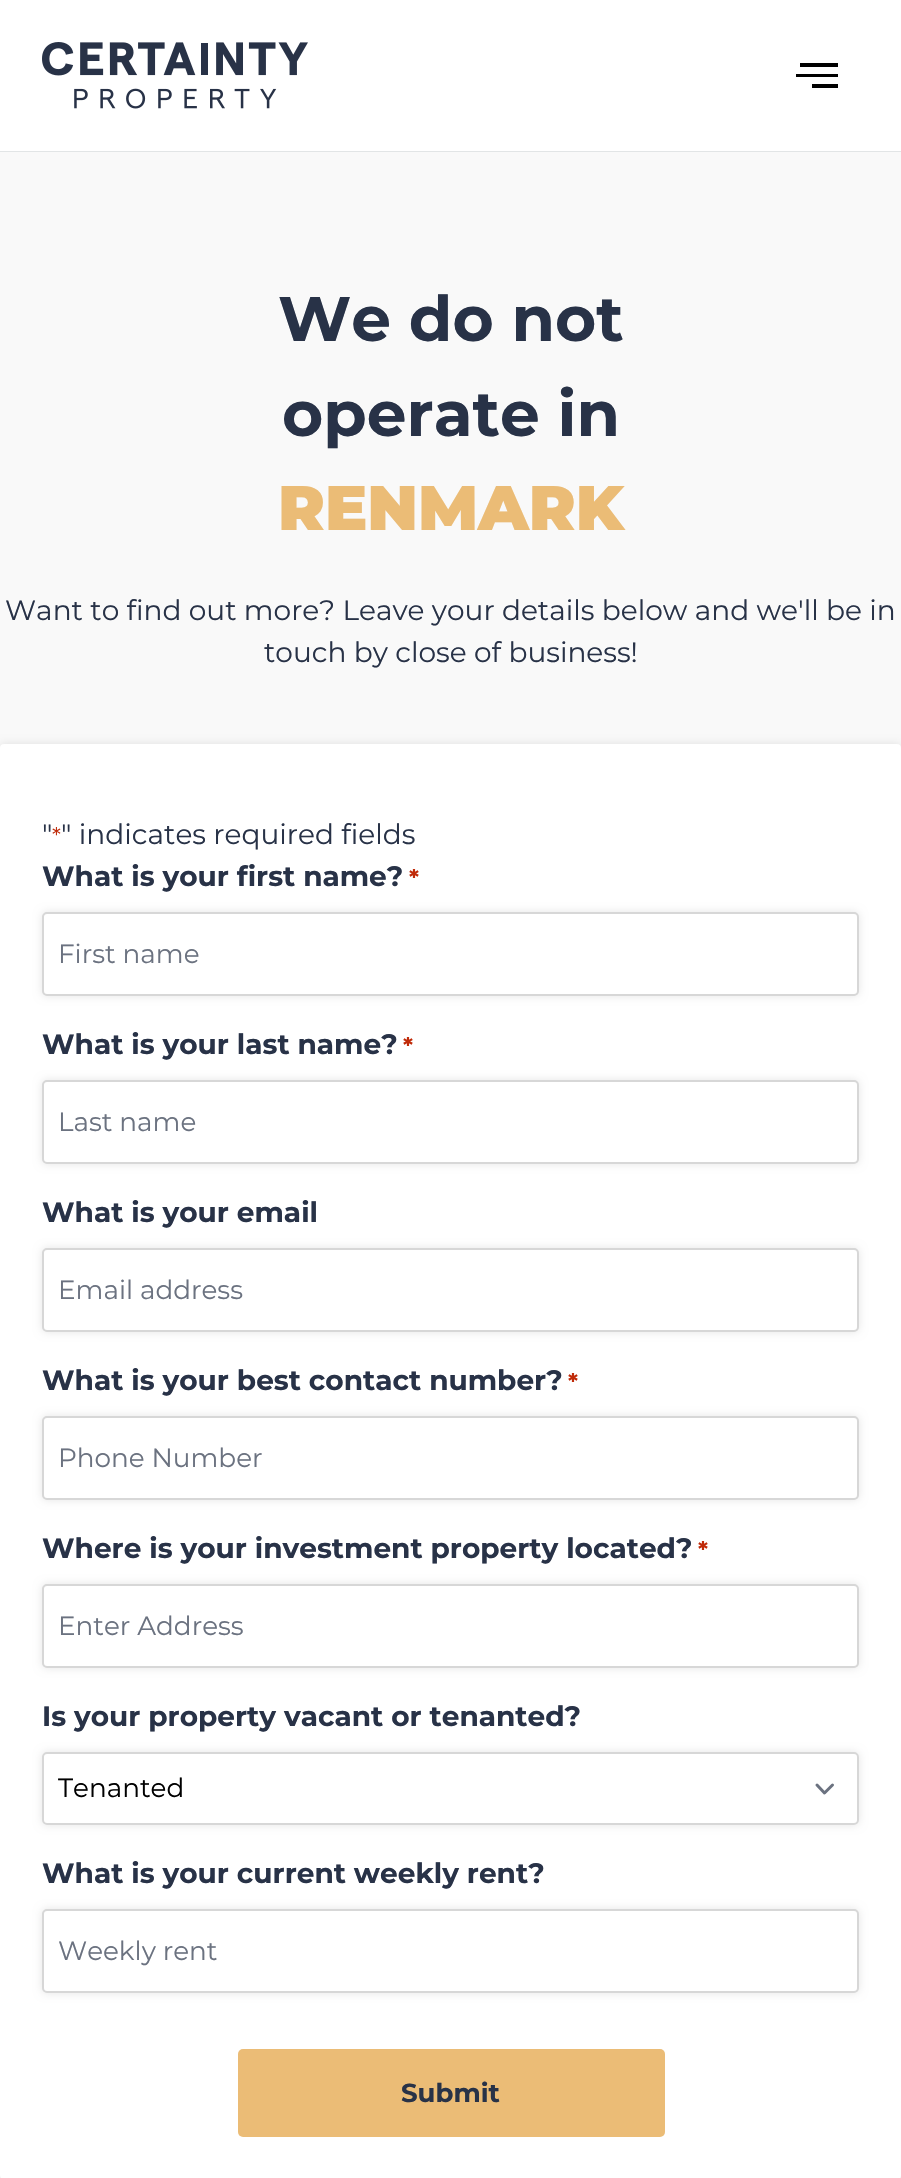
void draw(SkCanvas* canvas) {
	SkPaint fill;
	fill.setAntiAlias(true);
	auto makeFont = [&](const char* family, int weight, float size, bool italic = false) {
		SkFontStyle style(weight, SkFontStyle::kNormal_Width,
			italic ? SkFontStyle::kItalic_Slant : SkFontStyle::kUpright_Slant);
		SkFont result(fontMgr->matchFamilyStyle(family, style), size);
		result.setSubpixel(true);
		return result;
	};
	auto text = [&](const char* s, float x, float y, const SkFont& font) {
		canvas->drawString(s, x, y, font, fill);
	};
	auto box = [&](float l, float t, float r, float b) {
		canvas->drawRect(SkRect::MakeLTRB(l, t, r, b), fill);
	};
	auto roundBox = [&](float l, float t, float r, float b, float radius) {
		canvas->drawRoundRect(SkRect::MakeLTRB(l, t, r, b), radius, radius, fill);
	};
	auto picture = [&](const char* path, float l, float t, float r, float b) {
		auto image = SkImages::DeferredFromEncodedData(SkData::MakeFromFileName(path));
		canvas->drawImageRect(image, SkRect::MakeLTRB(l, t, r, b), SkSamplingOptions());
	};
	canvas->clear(0xFFFFFFFF);
	fill.setColor(0xFFE2E5E6);
	box(0, 151, 901, 152);
	picture("image0.png", 42, 42, 308, 109);
	fill.setColor(0xFF000000);
	box(812, 84, 838, 88);
	box(800, 63, 838, 67);
	box(796, 74, 838, 77);
	fill.setColor(0xFFF9F9F9);
	box(0, 152, 901, 2178);
	fill.setColor(0x1A000000);
	fill.setMaskFilter(SkMaskFilter::MakeBlur(kNormal_SkBlurStyle, 4.5f));
	canvas->drawRoundRect(SkRect::MakeLTRB(0, 744, 901, 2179), 4, 4, fill);
	fill.setMaskFilter(nullptr);
	fill.setColor(0xFFFFFFFF);
	roundBox(0, 744, 901, 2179, 4);
	fill.setColor(0x1A000000);
	fill.setMaskFilter(SkMaskFilter::MakeBlur(kNormal_SkBlurStyle, 4.5f));
	canvas->drawRoundRect(SkRect::MakeLTRB(42, 912, 859, 996), 5, 5, fill);
	fill.setMaskFilter(nullptr);
	fill.setColor(0xFFFFFFFF);
	canvas->drawRoundRect(SkRect::MakeLTRB(43, 913, 858, 995), 4, 4, fill);
	fill.setStyle(SkPaint::kStroke_Style);
	fill.setStrokeWidth(2);
	fill.setColor(0xFFD7D7D7);
	canvas->drawRoundRect(SkRect::MakeLTRB(43, 913, 858, 995), 4, 4, fill);
	fill.setStyle(SkPaint::kFill_Style);
	fill.setColor(0x1A000000);
	fill.setMaskFilter(SkMaskFilter::MakeBlur(kNormal_SkBlurStyle, 4.5f));
	canvas->drawRoundRect(SkRect::MakeLTRB(42, 1080, 859, 1164), 5, 5, fill);
	fill.setMaskFilter(nullptr);
	fill.setColor(0xFFFFFFFF);
	canvas->drawRoundRect(SkRect::MakeLTRB(43, 1081, 858, 1163), 4, 4, fill);
	fill.setStyle(SkPaint::kStroke_Style);
	fill.setColor(0xFFD7D7D7);
	canvas->drawRoundRect(SkRect::MakeLTRB(43, 1081, 858, 1163), 4, 4, fill);
	fill.setStyle(SkPaint::kFill_Style);
	fill.setColor(0x1A000000);
	fill.setMaskFilter(SkMaskFilter::MakeBlur(kNormal_SkBlurStyle, 4.5f));
	canvas->drawRoundRect(SkRect::MakeLTRB(42, 1248, 859, 1332), 5, 5, fill);
	fill.setMaskFilter(nullptr);
	fill.setColor(0xFFFFFFFF);
	canvas->drawRoundRect(SkRect::MakeLTRB(43, 1249, 858, 1331), 4, 4, fill);
	fill.setStyle(SkPaint::kStroke_Style);
	fill.setColor(0xFFD7D7D7);
	canvas->drawRoundRect(SkRect::MakeLTRB(43, 1249, 858, 1331), 4, 4, fill);
	fill.setStyle(SkPaint::kFill_Style);
	fill.setColor(0x1A000000);
	fill.setMaskFilter(SkMaskFilter::MakeBlur(kNormal_SkBlurStyle, 4.5f));
	canvas->drawRoundRect(SkRect::MakeLTRB(42, 1416, 859, 1500), 5, 5, fill);
	fill.setMaskFilter(nullptr);
	fill.setColor(0xFFFFFFFF);
	canvas->drawRoundRect(SkRect::MakeLTRB(43, 1417, 858, 1499), 4, 4, fill);
	fill.setStyle(SkPaint::kStroke_Style);
	fill.setColor(0xFFD7D7D7);
	canvas->drawRoundRect(SkRect::MakeLTRB(43, 1417, 858, 1499), 4, 4, fill);
	fill.setStyle(SkPaint::kFill_Style);
	fill.setColor(0x1A000000);
	fill.setMaskFilter(SkMaskFilter::MakeBlur(kNormal_SkBlurStyle, 4.5f));
	canvas->drawRoundRect(SkRect::MakeLTRB(42, 1584, 859, 1668), 5, 5, fill);
	fill.setMaskFilter(nullptr);
	fill.setColor(0xFFFFFFFF);
	canvas->drawRoundRect(SkRect::MakeLTRB(43, 1585, 858, 1667), 4, 4, fill);
	fill.setStyle(SkPaint::kStroke_Style);
	fill.setColor(0xFFD7D7D7);
	canvas->drawRoundRect(SkRect::MakeLTRB(43, 1585, 858, 1667), 4, 4, fill);
	fill.setStyle(SkPaint::kFill_Style);
	fill.setColor(0x1A000000);
	fill.setMaskFilter(SkMaskFilter::MakeBlur(kNormal_SkBlurStyle, 4.5f));
	canvas->drawRoundRect(SkRect::MakeLTRB(42, 1752, 859, 1825), 5, 5, fill);
	fill.setMaskFilter(nullptr);
	fill.setColor(0xFFFFFFFF);
	roundBox(42, 1752, 859, 1825, 5);
	fill.setStyle(SkPaint::kStroke_Style);
	fill.setStrokeWidth(3);
	fill.setStrokeCap(SkPaint::kRound_Cap);
	fill.setStrokeJoin(SkPaint::kRound_Join);
	fill.setColor(0xFF6B7280);
	canvas->drawPath(SkPathBuilder().moveTo(817, 1785).lineTo(824.5f, 1793).lineTo(832.5f, 1785).detach(), fill);
	fill.setStrokeWidth(2);
	fill.setStrokeCap(SkPaint::kButt_Cap);
	fill.setStrokeJoin(SkPaint::kMiter_Join);
	fill.setColor(0xFFD7D7D7);
	canvas->drawRoundRect(SkRect::MakeLTRB(43, 1753, 858, 1824), 4, 4, fill);
	fill.setStyle(SkPaint::kFill_Style);
	fill.setColor(0x1A000000);
	fill.setMaskFilter(SkMaskFilter::MakeBlur(kNormal_SkBlurStyle, 4.5f));
	canvas->drawRoundRect(SkRect::MakeLTRB(42, 1909, 859, 1993), 5, 5, fill);
	fill.setMaskFilter(nullptr);
	fill.setColor(0xFFFFFFFF);
	canvas->drawRoundRect(SkRect::MakeLTRB(43, 1910, 858, 1992), 4, 4, fill);
	fill.setStyle(SkPaint::kStroke_Style);
	fill.setColor(0xFFD7D7D7);
	canvas->drawRoundRect(SkRect::MakeLTRB(43, 1910, 858, 1992), 4, 4, fill);
	fill.setStyle(SkPaint::kFill_Style);
	fill.setColor(0xFFEBBC76);
	roundBox(238, 2049, 665, 2137, 5);
	auto font1 = makeFont("Montserrat", 700, 63);
	fill.setColor(0xFF283247);
	text("We do not", 278, 341, font1);
	text("operate in", 282, 436, font1);
	auto font2 = makeFont("Montserrat", 900, 63);
	fill.setColor(0xFFEBBC76);
	text("RENMARK", 278, 530, font2);
	auto font3 = makeFont("Montserrat", 400, 28);
	fill.setColor(0xFF283247);
	text("Want to find out more? Leave your details below and we'll be in", 5, 620, font3);
	text("touch by close of business!", 264, 662, font3);
	text("\"", 42, 844, font3);
	auto font4 = makeFont("Montserrat", 400, 23);
	fill.setColor(0xFFC02B0A);
	text("*", 52, 844, font4);
	fill.setColor(0xFF283247);
	text("\" indicates required fields", 61, 844, font3);
	auto font5 = makeFont("Montserrat", 700, 28);
	text("What is your first name?", 42, 886, font5);
	auto font6 = makeFont("Montserrat", 700, 23);
	fill.setColor(0xFFC02B0A);
	text("*", 409, 886, font6);
	auto font7 = makeFont("Montserrat", 400, 26.25f);
	fill.setColor(0xFF6B7280);
	text("First name", 58, 963, font7);
	fill.setColor(0xFF283247);
	text("What is your last name?", 42, 1054, font5);
	fill.setColor(0xFFC02B0A);
	text("*", 403, 1054, font6);
	fill.setColor(0xFF6B7280);
	text("Last name", 58, 1131, font7);
	fill.setColor(0xFF283247);
	text("What is your email", 42, 1222, font5);
	fill.setColor(0xFF6B7280);
	text("Email address", 58, 1299, font7);
	fill.setColor(0xFF283247);
	text("What is your best contact number?", 42, 1390, font5);
	fill.setColor(0xFFC02B0A);
	text("*", 568, 1390, font6);
	fill.setColor(0xFF6B7280);
	text("Phone Number", 58, 1467, font7);
	fill.setColor(0xFF283247);
	text("Where is your investment property located?", 42, 1558, font5);
	fill.setColor(0xFFC02B0A);
	text("*", 698, 1558, font6);
	fill.setColor(0xFF6B7280);
	text("Enter Address", 58, 1635, font7);
	fill.setColor(0xFF283247);
	text("Is your property vacant or tenanted?", 42, 1726, font5);
	fill.setColor(0xFF000000);
	text("Tenanted", 58, 1797, font7);
	fill.setColor(0xFF283247);
	text("What is your current weekly rent?", 42, 1883, font5);
	fill.setColor(0xFF6B7280);
	text("Weekly rent", 58, 1960, font7);
	auto font8 = makeFont("Montserrat", 700, 26);
	fill.setColor(0xFF283247);
	text("Submit", 401, 2102, font8);
}
